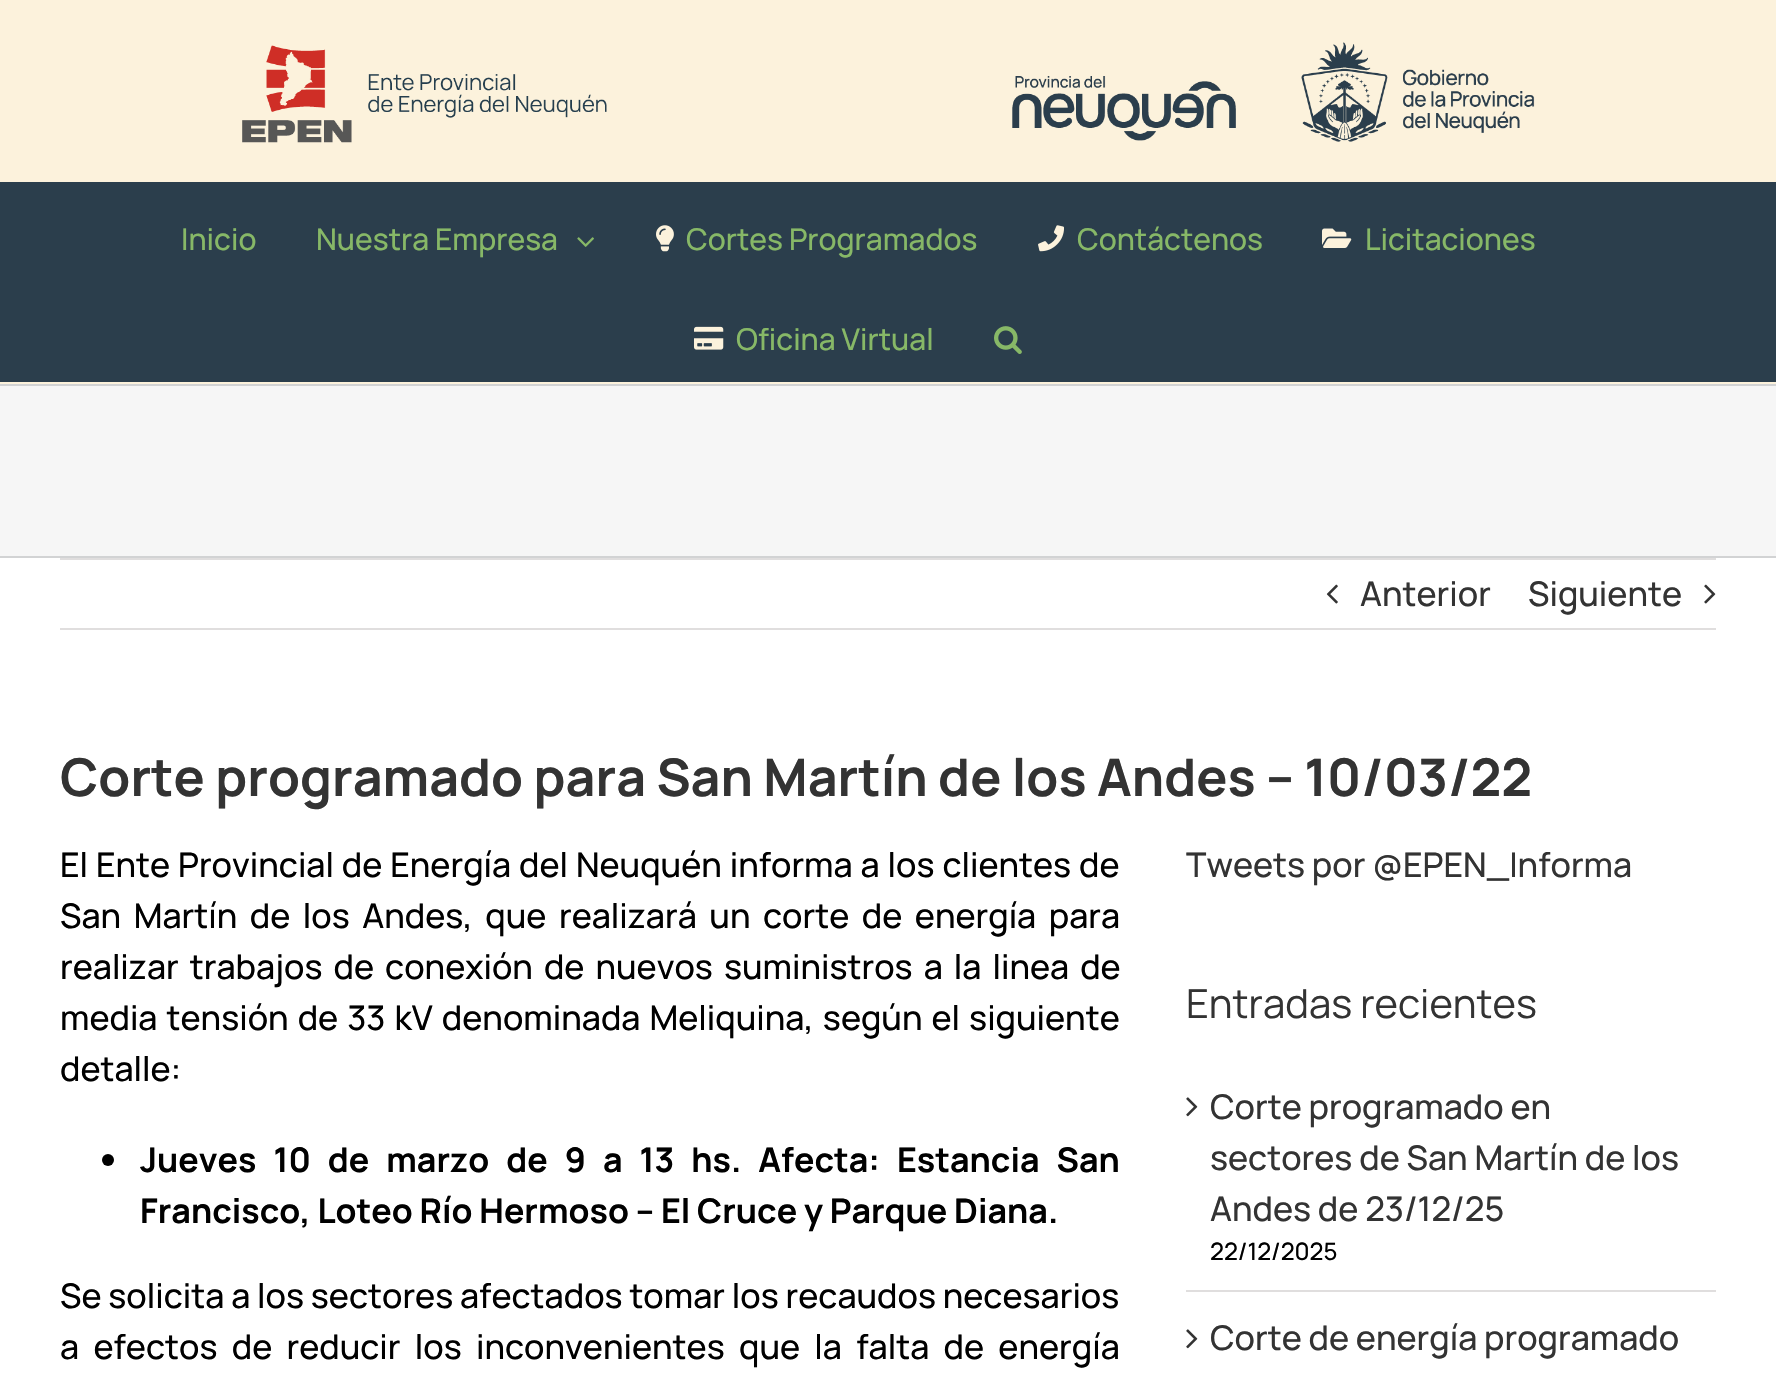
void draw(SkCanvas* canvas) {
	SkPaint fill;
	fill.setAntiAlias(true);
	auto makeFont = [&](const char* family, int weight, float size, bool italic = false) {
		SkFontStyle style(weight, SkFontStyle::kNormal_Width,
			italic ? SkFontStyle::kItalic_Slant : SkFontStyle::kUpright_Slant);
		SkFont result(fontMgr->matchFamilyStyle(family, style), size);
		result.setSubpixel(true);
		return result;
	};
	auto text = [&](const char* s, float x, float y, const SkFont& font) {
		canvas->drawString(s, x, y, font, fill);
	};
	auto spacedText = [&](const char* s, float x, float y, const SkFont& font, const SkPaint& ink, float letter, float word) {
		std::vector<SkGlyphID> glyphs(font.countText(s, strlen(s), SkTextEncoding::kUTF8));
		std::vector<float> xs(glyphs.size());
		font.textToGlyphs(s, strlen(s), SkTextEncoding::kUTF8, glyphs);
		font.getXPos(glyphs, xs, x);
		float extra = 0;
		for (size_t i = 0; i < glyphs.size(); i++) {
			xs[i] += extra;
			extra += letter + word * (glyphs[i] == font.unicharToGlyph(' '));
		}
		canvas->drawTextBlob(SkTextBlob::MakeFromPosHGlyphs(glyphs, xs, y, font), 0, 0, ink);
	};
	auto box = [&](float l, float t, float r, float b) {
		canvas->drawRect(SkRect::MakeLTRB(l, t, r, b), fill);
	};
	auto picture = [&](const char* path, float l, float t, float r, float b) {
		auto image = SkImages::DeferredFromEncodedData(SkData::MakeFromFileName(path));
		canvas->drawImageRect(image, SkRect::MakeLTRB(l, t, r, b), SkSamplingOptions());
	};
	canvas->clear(0xFFFFFFFF);
	fill.setColor(0xFFFCF2DC);
	box(0, 0, 1776, 182);
	picture("image0.png", 242, 42, 1535, 143);
	fill.setColor(0xFF2B3E4C);
	box(0, 182, 1776, 382);
	fill.setColor(0xFFFCF2DC);
	box(0, 382, 1776, 384);
	picture("image1.png", 577, 237, 594, 247);
	picture("image2.png", 656, 225, 674, 252);
	picture("image3.png", 1038, 225, 1064, 252);
	picture("image4.png", 1322, 228, 1352, 248);
	picture("image5.png", 694, 326, 724, 350);
	picture("image6.png", 994, 326, 1022, 354);
	fill.setColor(0xFFF6F6F6);
	box(0, 386, 1776, 556);
	fill.setColor(0xFFD2D3D4);
	box(0, 384, 1776, 386);
	box(0, 556, 1776, 558);
	fill.setColor(0xFFE0DEDE);
	box(60, 558, 1716, 560);
	box(60, 628, 1716, 630);
	picture("image7.png", 1326, 584, 1338, 604);
	picture("image8.png", 1704, 584, 1716, 604);
	fill.setColor(0xFF000000);
	canvas->drawCircle(108, 1160, 6, fill);
	fill.setColor(0xFFE0DEDE);
	box(1186, 1290, 1716, 1292);
	picture("image9.png", 1186, 1097, 1198, 1117);
	picture("image9.png", 1186, 1329, 1198, 1349);
	auto font1 = makeFont("Manrope", 500, 30);
	fill.setColor(0xFF87B867);
	text("Inicio", 181, 250, font1);
	text("Nuestra Empresa", 316, 250, font1);
	text("Cortes Programados", 686, 250, font1);
	text("Contáctenos", 1077, 250, font1);
	text("Licitaciones", 1365, 250, font1);
	text("Oficina Virtual", 736, 350, font1);
	auto font2 = makeFont("Manrope", 500, 34);
	fill.setColor(0xFF333333);
	text("Anterior", 1360, 606, font2);
	text("Siguiente", 1528, 606, font2);
	auto font3 = makeFont("Manrope", 700, 51.9f);
	text("Corte programado para San Martín de los Andes – 10/03/22", 60, 796, font3);
	fill.setColor(0xFF000000);
	spacedText("El Ente Provincial de Energía del Neuquén informa a los clientes de", 60, 877, font2, fill, 0, 1.1f);
	spacedText("San Martín de los Andes, que realizará un corte de energía para", 60, 928, font2, fill, 0, 5.75f);
	spacedText("realizar trabajos de conexión de nuevos suministros a la linea de", 60, 979, font2, fill, 0, 4.25f);
	spacedText("media tensión de 33 kV denominada Meliquina, según el siguiente", 60, 1030, font2, fill, 0, 2.25f);
	text("detalle:", 60, 1081, font2);
	auto font4 = makeFont("Manrope", 700, 34);
	spacedText("Jueves 10 de marzo de 9 a 13 hs. Afecta: Estancia San", 140, 1172, font4, fill, 0, 10.25f);
	text("Francisco, Loteo Río Hermoso – El Cruce y Parque Diana.", 140, 1223, font4);
	text("Se solicita a los sectores afectados tomar los recaudos necesarios", 60, 1308, font2);
	spacedText("a efectos de reducir los inconvenientes que la falta de energía", 60, 1359, font2, fill, 0, 7.5f);
	fill.setColor(0xFF333333);
	text("Tweets por @EPEN_Informa", 1186, 877, font2);
	auto font5 = makeFont("Manrope", 400, 40);
	text("Entradas recientes", 1186, 1018, font5);
	text("Corte programado en", 1210, 1119, font2);
	text("sectores de San Martín de los", 1210, 1170, font2);
	text("Andes de 23/12/25", 1210, 1221, font2);
	auto font6 = makeFont("Manrope", 500, 24);
	fill.setColor(0xFF000000);
	text("22/12/2025", 1210, 1260, font6);
	fill.setColor(0xFF333333);
	text("Corte de energía programado", 1210, 1350, font2);
}
